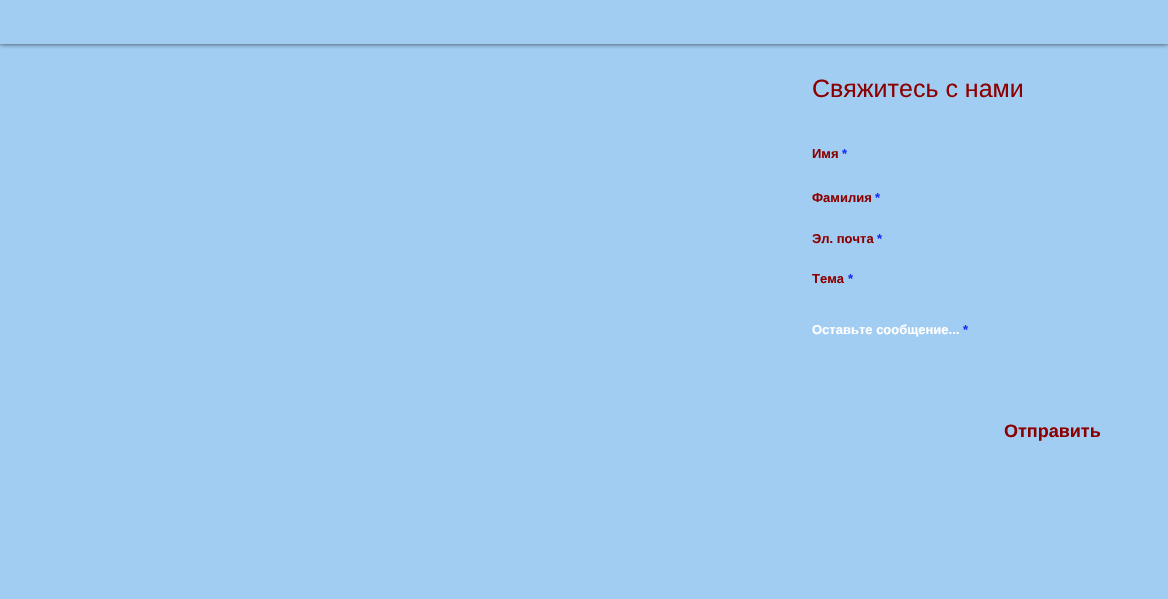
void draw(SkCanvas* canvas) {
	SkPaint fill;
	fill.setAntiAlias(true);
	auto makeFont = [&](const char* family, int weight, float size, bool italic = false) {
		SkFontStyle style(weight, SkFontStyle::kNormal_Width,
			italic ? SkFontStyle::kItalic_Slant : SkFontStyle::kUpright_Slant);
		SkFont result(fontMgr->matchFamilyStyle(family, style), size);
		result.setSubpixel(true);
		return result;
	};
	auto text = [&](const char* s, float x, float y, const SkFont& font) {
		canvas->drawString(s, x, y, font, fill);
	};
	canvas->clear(0xFFA2CDF2);
	canvas->save();
	canvas->clipRect(SkRect::MakeLTRB(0, 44, 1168, 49));
	fill.setColor(0xB3000000);
	fill.setMaskFilter(SkMaskFilter::MakeBlur(kNormal_SkBlurStyle, 2.5f));
	canvas->drawRect(SkRect::MakeLTRB(0, 0, 1168, 44), fill);
	fill.setMaskFilter(nullptr);
	canvas->restore();
	auto font1 = makeFont("Liberation Sans", 400, 25);
	fill.setColor(0xFF8B0000);
	text("Свяжитесь с нами", 812, 97, font1);
	auto font2 = makeFont("Liberation Sans", 700, 13);
	text("Имя", 812, 158, font2);
	fill.setColor(0xFF1A2DF3);
	text("*", 842, 158, font2);
	fill.setColor(0xFF8B0000);
	text("Фамилия", 812, 202, font2);
	fill.setColor(0xFF1A2DF3);
	text("*", 875, 202, font2);
	fill.setColor(0xFF8B0000);
	text("Эл. почта", 812, 243, font2);
	fill.setColor(0xFF1A2DF3);
	text("*", 877, 243, font2);
	fill.setColor(0xFF8B0000);
	text("Тема", 812, 283, font2);
	fill.setColor(0xFF1A2DF3);
	text("*", 848, 283, font2);
	fill.setColor(0xFFFFFFFF);
	text("Оставьте сообщение...", 812, 334, font2);
	fill.setColor(0xFF1A2DF3);
	text("*", 963, 334, font2);
	auto font3 = makeFont("Liberation Sans", 700, 18);
	fill.setColor(0xFF8B0000);
	text("Отправить", 1004, 437, font3);
}
